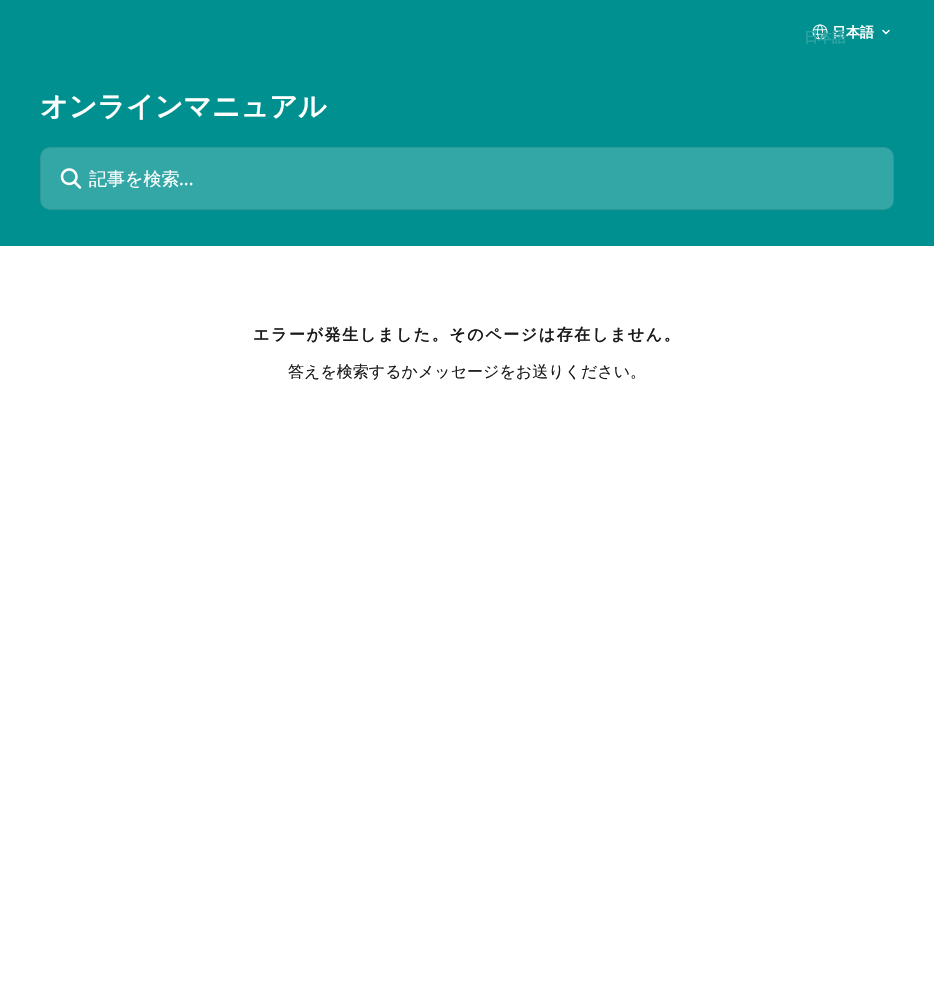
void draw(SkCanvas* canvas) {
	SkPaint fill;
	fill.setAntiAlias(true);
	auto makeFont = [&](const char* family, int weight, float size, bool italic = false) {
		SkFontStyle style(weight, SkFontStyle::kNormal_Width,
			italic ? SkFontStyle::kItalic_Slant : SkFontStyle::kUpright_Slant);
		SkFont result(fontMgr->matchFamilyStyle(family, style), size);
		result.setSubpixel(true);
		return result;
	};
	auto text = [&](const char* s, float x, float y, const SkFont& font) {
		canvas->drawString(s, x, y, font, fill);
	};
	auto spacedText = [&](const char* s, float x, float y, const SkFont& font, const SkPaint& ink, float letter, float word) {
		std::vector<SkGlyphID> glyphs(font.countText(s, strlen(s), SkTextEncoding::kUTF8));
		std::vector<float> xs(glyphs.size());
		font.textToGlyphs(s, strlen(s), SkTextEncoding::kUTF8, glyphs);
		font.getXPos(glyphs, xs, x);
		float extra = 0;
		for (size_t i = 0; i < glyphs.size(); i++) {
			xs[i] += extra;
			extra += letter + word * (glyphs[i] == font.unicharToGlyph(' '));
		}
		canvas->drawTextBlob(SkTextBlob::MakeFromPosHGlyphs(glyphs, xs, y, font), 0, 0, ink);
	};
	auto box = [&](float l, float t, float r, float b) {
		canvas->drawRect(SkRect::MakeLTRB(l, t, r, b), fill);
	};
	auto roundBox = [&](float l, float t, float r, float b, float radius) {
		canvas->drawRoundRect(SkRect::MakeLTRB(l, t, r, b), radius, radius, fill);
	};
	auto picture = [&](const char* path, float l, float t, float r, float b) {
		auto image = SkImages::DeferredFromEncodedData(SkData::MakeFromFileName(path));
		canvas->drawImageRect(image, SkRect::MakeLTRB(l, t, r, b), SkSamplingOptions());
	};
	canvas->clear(0xFFFFFFFF);
	fill.setColor(0xFF009090);
	box(0, 0, 934, 246);
	picture("image0.png", 812, 24, 828, 40);
	fill.setStyle(SkPaint::kStroke_Style);
	fill.setStrokeWidth(1.5f);
	fill.setStrokeCap(SkPaint::kRound_Cap);
	fill.setStrokeJoin(SkPaint::kRound_Join);
	fill.setColor(0xFFFFFFFF);
	canvas->drawPath(SkPathBuilder().moveTo(883, 30.5f).lineTo(886, 33.5f).lineTo(889, 30.5f).detach(), fill);
	fill.setStyle(SkPaint::kFill_Style);
	fill.setColor(0x33FFFFFF);
	roundBox(40, 147, 894, 210, 10);
	fill.setStyle(SkPaint::kStroke_Style);
	fill.setStrokeWidth(1);
	fill.setStrokeCap(SkPaint::kButt_Cap);
	fill.setStrokeJoin(SkPaint::kMiter_Join);
	fill.setColor(0x14000000);
	canvas->drawRoundRect(SkRect::MakeLTRB(40.5f, 147.5f, 893.5f, 209.5f), 9.5f, 9.5f, fill);
	picture("image1.png", 60, 168, 82, 189);
	auto font1 = makeFont("WenQuanYi Zen Hei", 700, 14);
	fill.setStyle(SkPaint::kFill_Style);
	fill.setColor(0xFFFFFFFF);
	text("日本語", 832, 37, font1);
	fill.setColor(0xFF2DA3A3);
	text("日本語", 804, 42, font1);
	auto font2 = makeFont("WenQuanYi Zen Hei", 700, 28);
	fill.setColor(0xFFFFFFFF);
	text("オンラインマニュアル", 40, 116, font2);
	auto font3 = makeFont("WenQuanYi Zen Hei", 500, 18);
	text("記事を検索", 89, 185, font3);
	auto font4 = makeFont("Noto Sans", 400, 18);
	text("...", 179, 185, font4);
	auto font5 = makeFont("WenQuanYi Zen Hei", 700, 16);
	fill.setColor(0xFF1A1A1A);
	spacedText("エラーが発生しました。そのページは存在しません。", 253, 340, font5, fill, 1.6f, 0);
	auto font6 = makeFont("WenQuanYi Zen Hei", 500, 16);
	text("答えを検索するかメッセージをお送りください。", 288, 377, font6);
}
